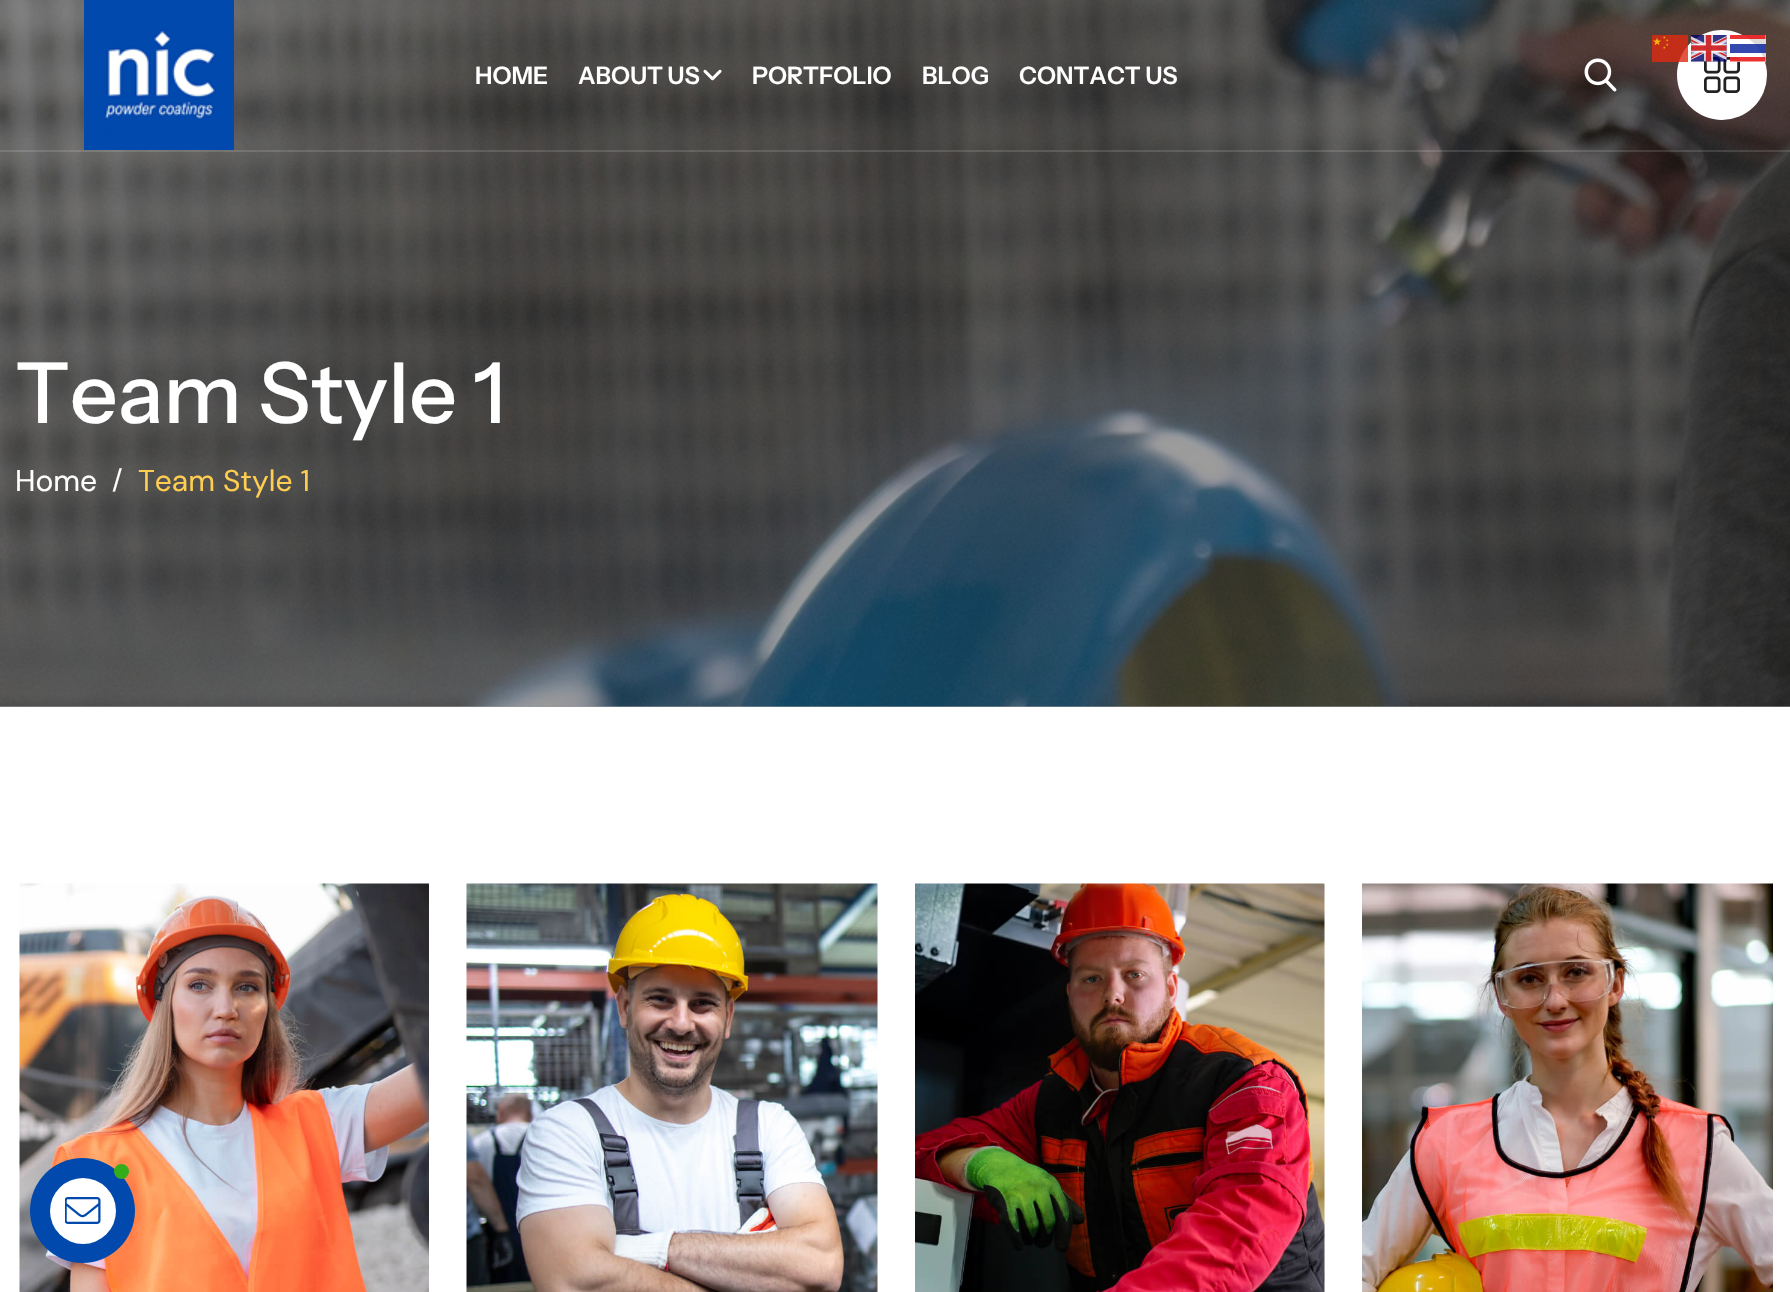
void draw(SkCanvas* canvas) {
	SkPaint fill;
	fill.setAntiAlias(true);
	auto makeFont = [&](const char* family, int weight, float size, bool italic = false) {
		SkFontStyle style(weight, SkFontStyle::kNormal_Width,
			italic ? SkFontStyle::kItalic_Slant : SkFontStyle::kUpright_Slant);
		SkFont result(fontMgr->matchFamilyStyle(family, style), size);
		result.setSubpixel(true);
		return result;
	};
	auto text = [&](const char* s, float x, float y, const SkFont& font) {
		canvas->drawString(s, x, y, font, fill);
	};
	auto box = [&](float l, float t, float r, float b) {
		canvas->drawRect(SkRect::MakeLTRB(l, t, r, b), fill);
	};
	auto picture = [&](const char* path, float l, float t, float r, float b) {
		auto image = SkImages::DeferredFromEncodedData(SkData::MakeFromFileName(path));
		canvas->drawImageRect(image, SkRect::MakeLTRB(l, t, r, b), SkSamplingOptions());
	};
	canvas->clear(0xFFFFFFFF);
	fill.setColor(0xFF9C9C9C);
	box(0, 706, 1790, 707);
	picture("image6.png", 0, 0, 1790, 707);
	fill.setColor(0xFFFFFFFF);
	canvas->drawCircle(1722, 75, 45, fill);
	picture("image0.png", 1652, 35, 1688, 62);
	picture("image5.png", 1704, 57, 1740, 93);
	picture("image1.png", 1691, 35, 1727, 62);
	fill.setColor(0xCCFFFFFF);
	box(1730, 35, 1766, 62);
	fill.setColor(0xCC001B9A);
	box(1730, 44, 1766, 53);
	canvas->save();
	canvas->clipRect(SkRect::MakeLTRB(1730, 35, 1766, 62));
	fill.setColor(0xCCE70000);
	canvas->drawPath(SkPathBuilder(SkPathFillType::kEvenOdd).moveTo(1729.5f, 34.5f).lineTo(1765.5f, 34.5f).lineTo(1765.5f, 39).lineTo(1729.5f, 39).close().moveTo(1729.5f, 57).lineTo(1765.5f, 57).lineTo(1765.5f, 61.5f).lineTo(1729.5f, 61.5f).close().detach(), fill);
	canvas->restore();
	fill.setColor(0x21FFFFFF);
	box(0, 150, 1790, 152);
	picture("image2.png", 84, 0, 234, 150);
	picture("image3.png", 703, 69, 722, 81);
	picture("image4.png", 1584, 58, 1617, 92);
	picture("image7.png", 19, 883, 429, 1292);
	picture("image8.png", 466, 883, 878, 1292);
	picture("image9.png", 915, 883, 1325, 1292);
	picture("image10.png", 1362, 883, 1773, 1292);
	fill.setColor(0xFF0149AC);
	canvas->drawCircle(82.5f, 1210.5f, 52.5f, fill);
	fill.setColor(0xFFFFFFFF);
	canvas->drawCircle(83, 1211, 33, fill);
	picture("image11.png", 65, 1197, 101, 1224);
	fill.setColor(0xFF35AC19);
	canvas->drawCircle(121.5f, 1171.5f, 7.5f, fill);
	auto font1 = makeFont("Instrument Sans", 600, 24);
	fill.setColor(0xFFFFFFFF);
	text("HOME", 475, 84, font1);
	text("ABOUT US", 578, 84, font1);
	text("PORTFOLIO", 752, 84, font1);
	text("BLOG", 922, 84, font1);
	text("CONTACT US", 1019, 84, font1);
	auto font2 = makeFont("Instrument Sans", 500, 84);
	text("Team Style 1", 15, 423, font2);
	auto font3 = makeFont("DM Sans", 400, 30);
	text("Home", 15, 491, font3);
	auto font4 = makeFont("DM Sans", 400, 27);
	text("/", 112, 489, font4);
	fill.setColor(0xFFFFCD4F);
	text("Team Style 1", 138, 491, font3);
}
